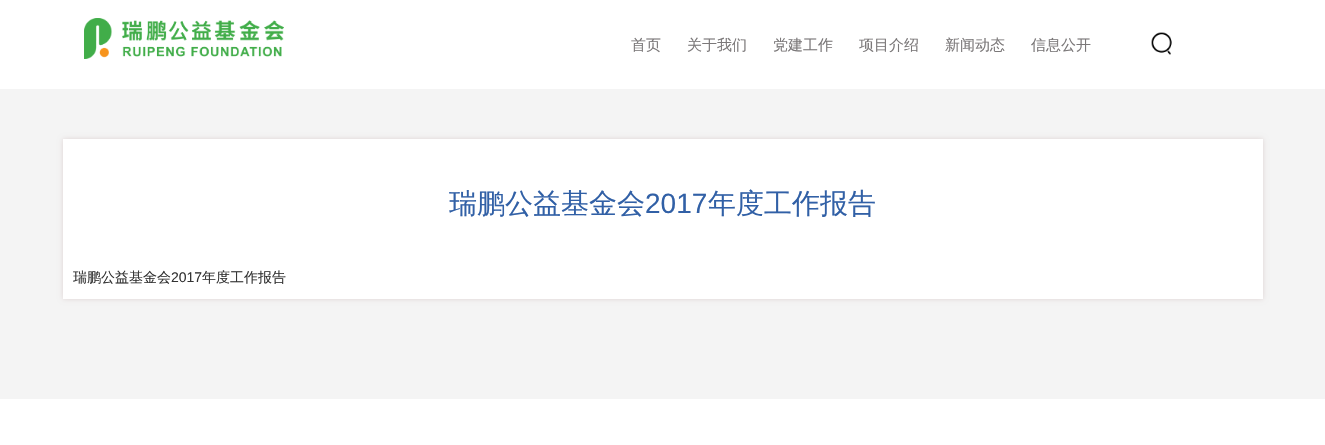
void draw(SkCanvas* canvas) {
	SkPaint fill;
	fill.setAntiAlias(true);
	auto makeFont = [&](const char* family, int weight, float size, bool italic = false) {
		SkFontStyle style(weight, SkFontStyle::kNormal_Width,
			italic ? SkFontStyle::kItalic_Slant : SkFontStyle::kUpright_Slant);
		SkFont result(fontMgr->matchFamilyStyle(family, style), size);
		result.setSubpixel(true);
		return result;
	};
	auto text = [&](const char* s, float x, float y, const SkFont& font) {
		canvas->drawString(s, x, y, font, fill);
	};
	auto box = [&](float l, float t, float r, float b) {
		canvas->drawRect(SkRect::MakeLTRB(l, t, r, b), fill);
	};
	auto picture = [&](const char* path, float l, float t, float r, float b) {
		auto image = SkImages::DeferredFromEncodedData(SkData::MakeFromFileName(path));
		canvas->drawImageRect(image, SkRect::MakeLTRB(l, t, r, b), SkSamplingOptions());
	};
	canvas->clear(0xFFFFFFFF);
	picture("image0.png", 84, 18, 284, 59);
	picture("image1.png", 1151, 32, 1172, 55);
	fill.setColor(0xFFF4F4F4);
	box(0, 89, 1325, 399);
	fill.setColor(0xFFDED3D3);
	fill.setMaskFilter(SkMaskFilter::MakeBlur(kNormal_SkBlurStyle, 2.5f));
	canvas->drawRect(SkRect::MakeLTRB(63, 139, 1263, 299), fill);
	fill.setMaskFilter(nullptr);
	fill.setColor(0xFFFFFFFF);
	box(63, 139, 1263, 299);
	auto font1 = makeFont("WenQuanYi Zen Hei", 500, 15);
	fill.setColor(0xFF7B7879);
	text("首页", 631, 50, font1);
	text("关于我们", 687, 50, font1);
	text("党建工作", 773, 50, font1);
	text("项目介绍", 859, 50, font1);
	text("新闻动态", 945, 50, font1);
	text("信息公开", 1031, 50, font1);
	auto font2 = makeFont("WenQuanYi Zen Hei", 500, 28);
	fill.setColor(0xFF3160A6);
	text("瑞鹏公益基金会", 449, 213, font2);
	auto font3 = makeFont("Liberation Sans", 400, 28);
	text("2017", 645, 213, font3);
	text("年度工作报告", 708, 213, font2);
	auto font4 = makeFont("WenQuanYi Zen Hei", 500, 14);
	fill.setColor(0xFF333333);
	text("瑞鹏公益基金会", 73, 282, font4);
	auto font5 = makeFont("Liberation Sans", 400, 14);
	text("2017", 171, 282, font5);
	text("年度工作报告", 202, 282, font4);
}
